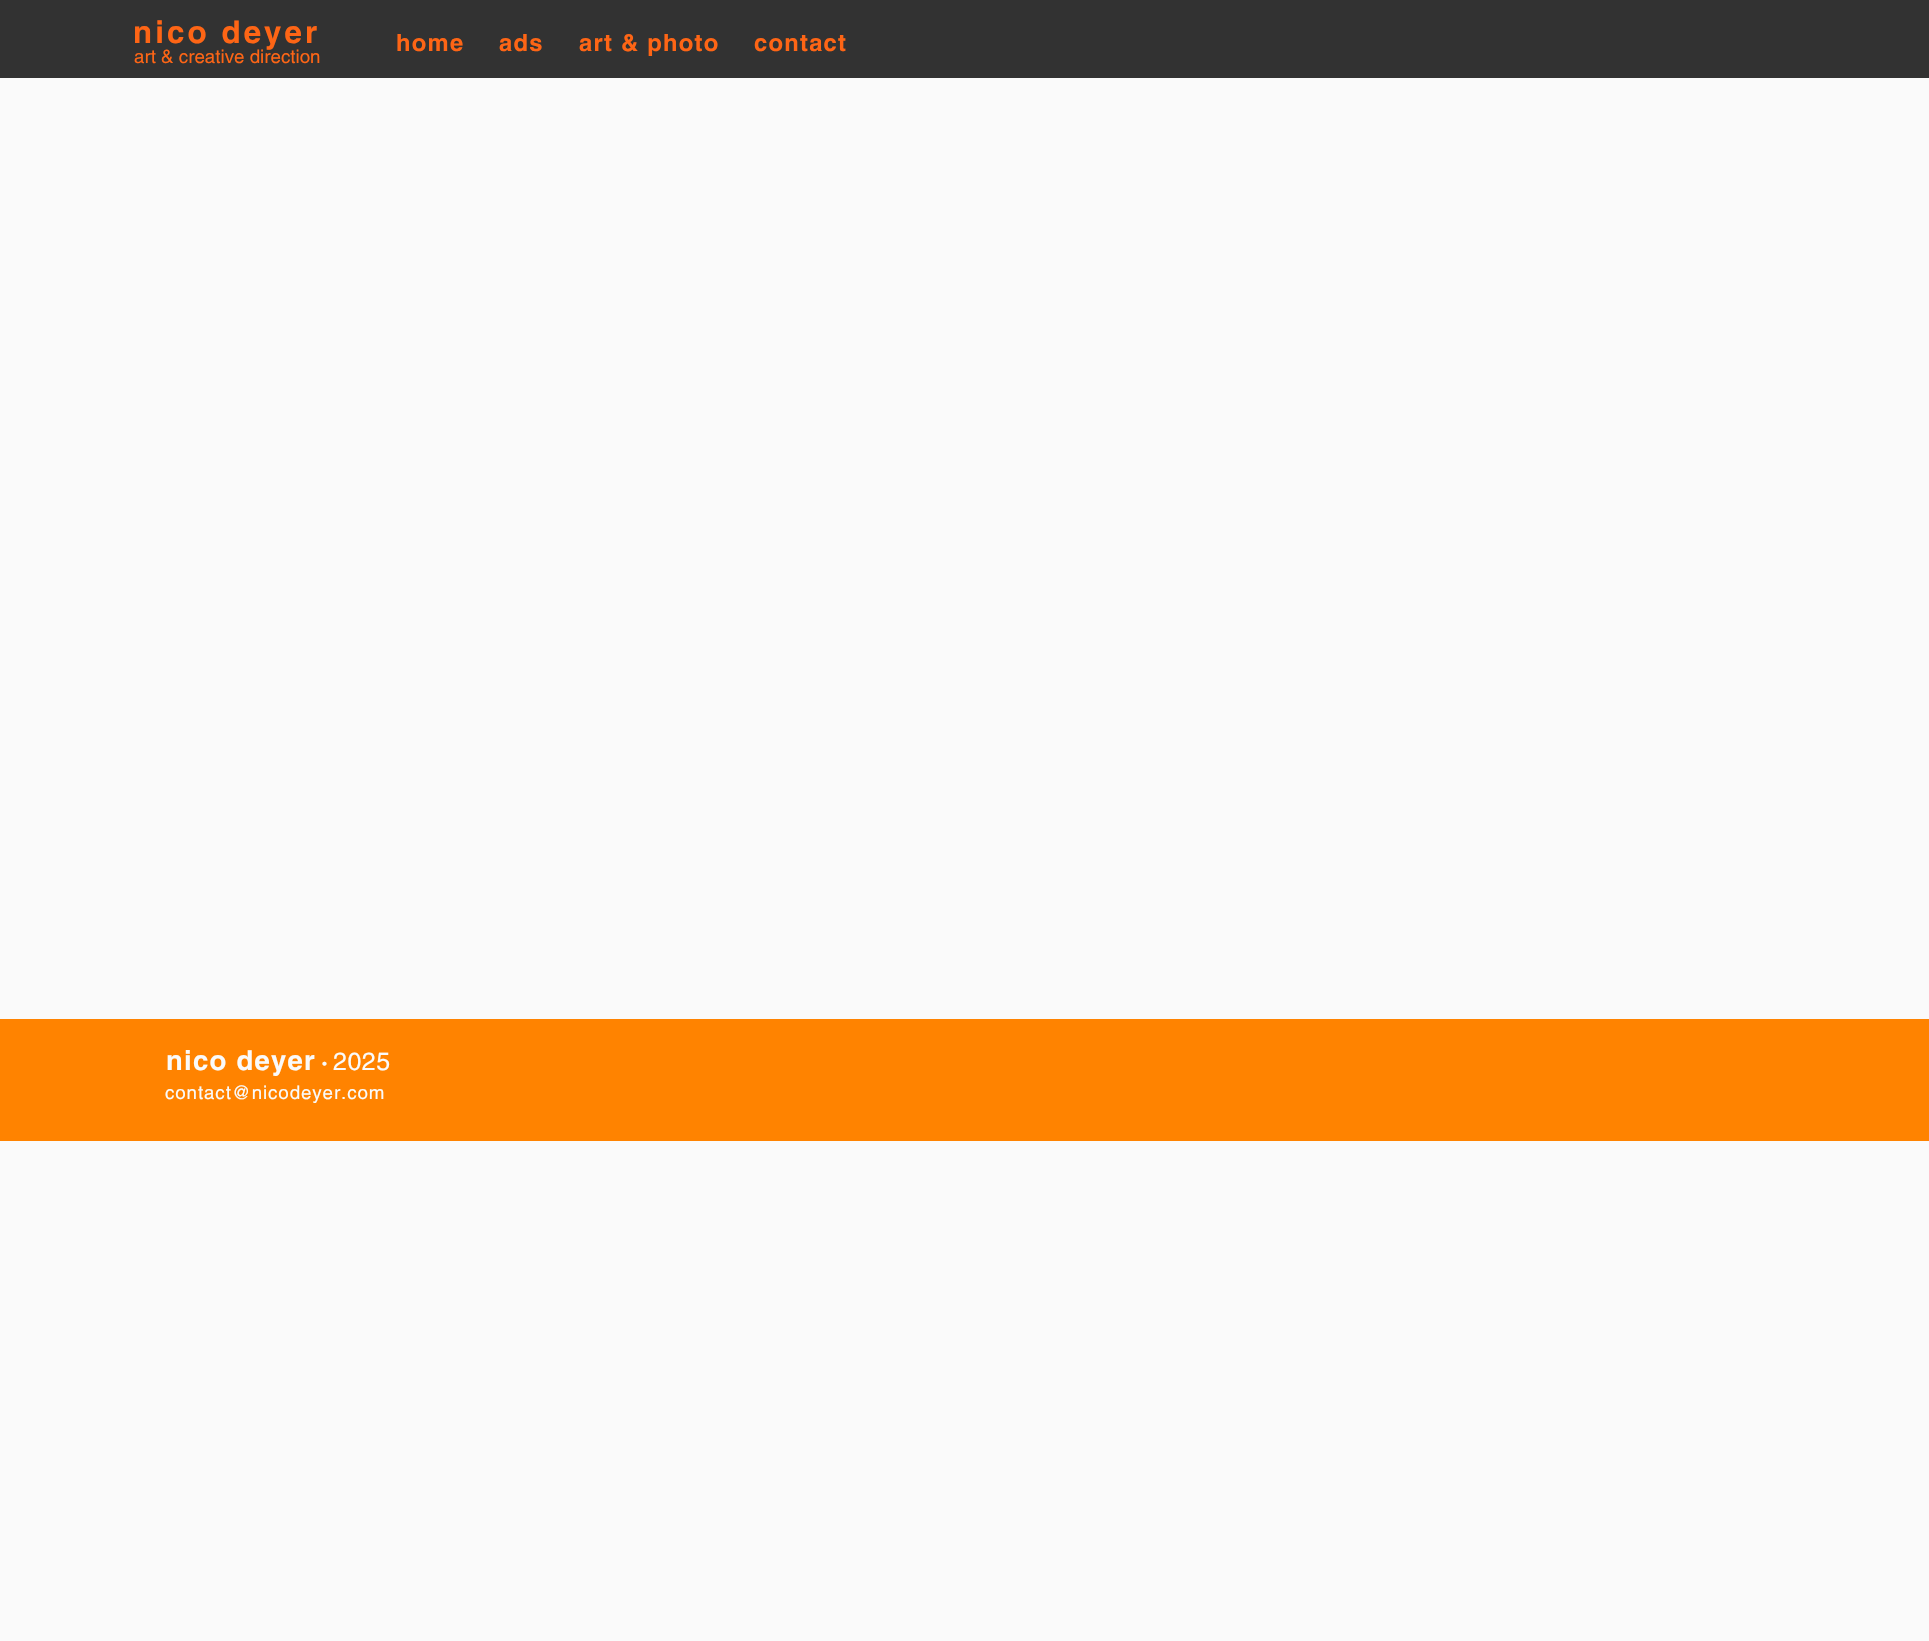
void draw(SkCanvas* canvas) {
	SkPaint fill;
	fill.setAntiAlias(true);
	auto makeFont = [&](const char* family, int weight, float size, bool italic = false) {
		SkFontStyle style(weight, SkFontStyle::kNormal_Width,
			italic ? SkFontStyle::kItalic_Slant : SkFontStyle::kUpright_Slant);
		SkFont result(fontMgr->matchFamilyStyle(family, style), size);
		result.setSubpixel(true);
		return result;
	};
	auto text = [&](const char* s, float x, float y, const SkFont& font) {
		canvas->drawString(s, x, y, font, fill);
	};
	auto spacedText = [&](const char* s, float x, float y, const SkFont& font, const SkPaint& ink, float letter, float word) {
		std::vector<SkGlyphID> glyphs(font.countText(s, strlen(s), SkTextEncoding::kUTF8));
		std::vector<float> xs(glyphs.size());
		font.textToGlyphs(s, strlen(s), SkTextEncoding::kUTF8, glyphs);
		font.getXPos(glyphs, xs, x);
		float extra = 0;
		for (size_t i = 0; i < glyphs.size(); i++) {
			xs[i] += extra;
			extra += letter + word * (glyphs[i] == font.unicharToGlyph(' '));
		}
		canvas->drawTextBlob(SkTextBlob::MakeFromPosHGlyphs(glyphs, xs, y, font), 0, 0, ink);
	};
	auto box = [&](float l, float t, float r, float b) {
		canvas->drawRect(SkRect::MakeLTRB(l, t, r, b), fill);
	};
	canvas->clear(0xFFFAFAFA);
	fill.setColor(0xFF323232);
	box(0, 0, 1929, 78);
	fill.setColor(0xFFFF8300);
	box(0, 1019, 1929, 1141);
	auto font1 = makeFont("helvetica", 700, 31.25f);
	fill.setColor(0xFFFE6515);
	spacedText("nico deyer", 133, 43, font1, fill, 3.1f, 0);
	auto font2 = makeFont("helvetica", 400, 18.75f);
	text("art & creative direction", 134, 63, font2);
	auto font3 = makeFont("helvetica", 700, 23.75f);
	spacedText("home", 396, 51, font3, fill, 1.25f, 0);
	spacedText("ads", 499, 51, font3, fill, 1.25f, 0);
	spacedText("art & photo", 579, 51, font3, fill, 1.25f, 0);
	spacedText("contact", 754, 51, font3, fill, 1.25f, 0);
	auto font4 = makeFont("helvetica", 700, 27.5f);
	fill.setColor(0xFFFAFAFA);
	spacedText("nico deyer", 166, 1070, font4, fill, 1.25f, 0);
	auto font5 = makeFont("helvetica", 700, 25);
	spacedText("·", 321, 1070, font5, fill, -1, 0);
	auto font6 = makeFont("helvetica", 400, 25);
	spacedText("2025", 333, 1070, font6, fill, 0.5f, 0);
	spacedText("contact@nicodeyer.com", 165, 1099, font2, fill, 0.9f, 0);
}
